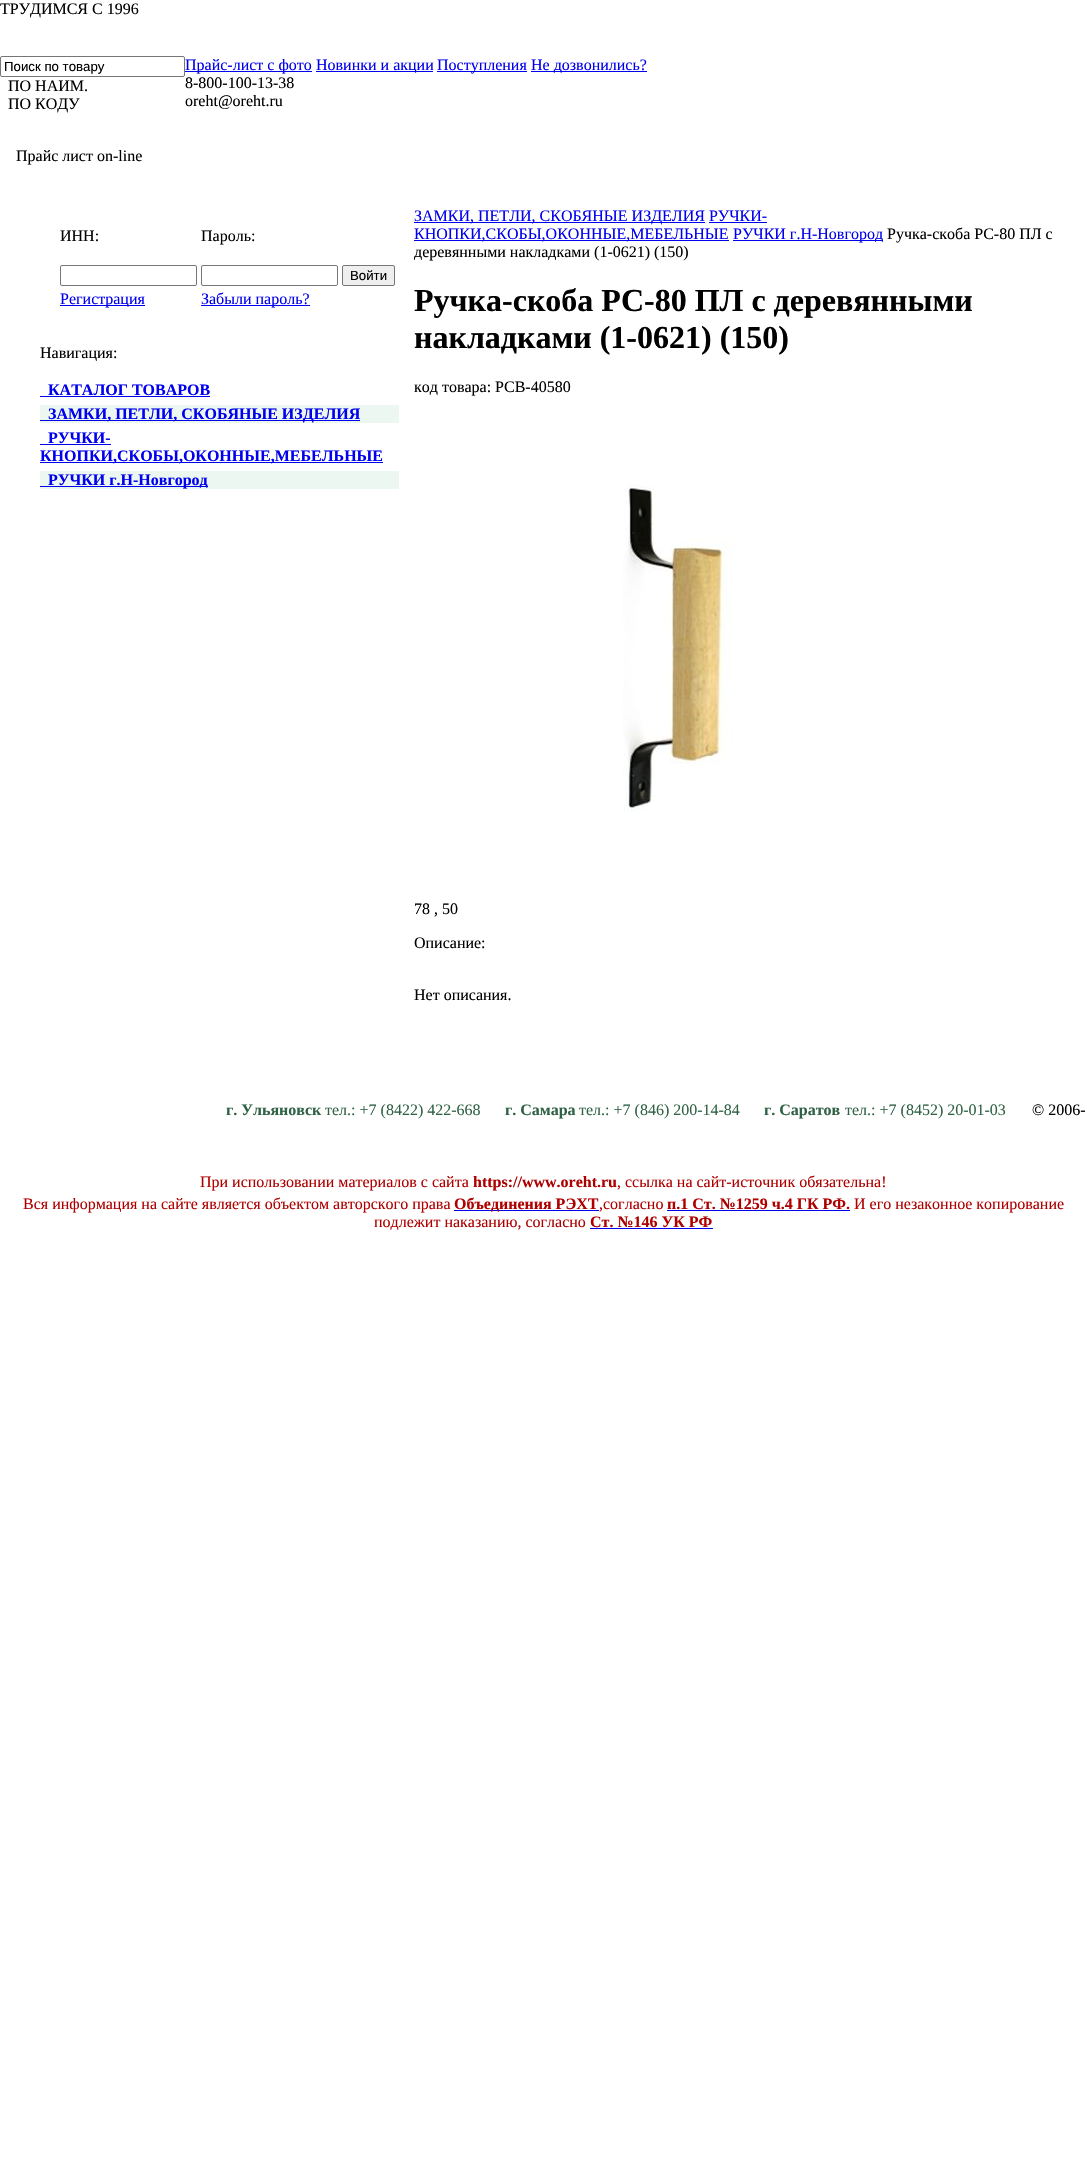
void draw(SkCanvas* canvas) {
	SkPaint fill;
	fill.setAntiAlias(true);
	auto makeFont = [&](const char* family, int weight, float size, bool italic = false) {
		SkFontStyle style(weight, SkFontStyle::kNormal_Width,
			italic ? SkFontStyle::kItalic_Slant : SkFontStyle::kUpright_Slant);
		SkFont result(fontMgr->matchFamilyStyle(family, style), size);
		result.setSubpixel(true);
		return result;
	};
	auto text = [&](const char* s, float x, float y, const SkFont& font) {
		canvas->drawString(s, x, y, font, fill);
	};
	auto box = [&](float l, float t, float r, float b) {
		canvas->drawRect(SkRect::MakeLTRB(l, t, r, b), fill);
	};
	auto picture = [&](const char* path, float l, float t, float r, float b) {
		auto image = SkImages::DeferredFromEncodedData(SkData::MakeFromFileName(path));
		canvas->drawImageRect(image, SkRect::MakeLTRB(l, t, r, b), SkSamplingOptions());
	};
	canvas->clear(0xFFFFFFFF);
	fill.setStyle(SkPaint::kStroke_Style);
	fill.setStrokeWidth(1);
	fill.setColor(0xFF767676);
	canvas->drawRoundRect(SkRect::MakeLTRB(0.5f, 56.5f, 184.5f, 76.5f), 1.5f, 1.5f, fill);
	fill.setStyle(SkPaint::kFill_Style);
	fill.setColor(0xFF0000EE);
	box(185, 71, 312, 72);
	box(316, 71, 433, 72);
	box(437, 71, 527, 72);
	box(531, 71, 647, 72);
	fill.setStyle(SkPaint::kStroke_Style);
	fill.setColor(0xFF767676);
	canvas->drawRoundRect(SkRect::MakeLTRB(60.5f, 265.5f, 196.5f, 285.5f), 1.5f, 1.5f, fill);
	canvas->drawRoundRect(SkRect::MakeLTRB(201.5f, 265.5f, 337.5f, 285.5f), 1.5f, 1.5f, fill);
	fill.setStyle(SkPaint::kFill_Style);
	fill.setColor(0xFFEFEFEF);
	canvas->drawRoundRect(SkRect::MakeLTRB(342.5f, 265.5f, 394.5f, 285.5f), 1.5f, 1.5f, fill);
	fill.setStyle(SkPaint::kStroke_Style);
	fill.setColor(0xFF767676);
	canvas->drawRoundRect(SkRect::MakeLTRB(342.5f, 265.5f, 394.5f, 285.5f), 1.5f, 1.5f, fill);
	fill.setStyle(SkPaint::kFill_Style);
	fill.setColor(0xFF0000EE);
	box(60, 305, 145, 306);
	box(201, 305, 310, 306);
	box(40, 396, 210, 397);
	fill.setColor(0xFFEBF7F0);
	box(40, 405, 399, 423);
	fill.setColor(0xFF0000EE);
	box(40, 420, 360, 421);
	box(40, 444, 111, 445);
	box(40, 462, 383, 463);
	fill.setColor(0xFFEBF7F0);
	box(40, 471, 399, 489);
	fill.setColor(0xFF0000EE);
	box(40, 486, 208, 487);
	box(414, 222, 705, 223);
	box(709, 222, 767, 223);
	box(414, 240, 729, 241);
	box(733, 240, 883, 241);
	picture("image0.png", 622, 484, 734, 812);
	box(454, 1210, 599, 1211);
	box(667, 1210, 850, 1211);
	box(590, 1228, 713, 1229);
	auto font1 = makeFont("Liberation Serif", 400, 16);
	fill.setColor(0xFF000000);
	text("ТРУДИМСЯ С 1996", 0, 14, font1);
	auto font2 = makeFont("Liberation Sans", 400, 13.25f);
	text("Поиск по товару", 4, 71, font2);
	text("ПО НАИМ.", 8, 91, font1);
	text("ПО КОДУ", 8, 109, font1);
	fill.setColor(0xFF0000EE);
	text("Прайс-лист с фото", 185, 70, font1);
	text("Новинки и акции", 316, 70, font1);
	text("Поступления", 437, 70, font1);
	text("Не дозвонились?", 531, 70, font1);
	fill.setColor(0xFF000000);
	text("8-800-100-13-38", 185, 88, font1);
	text("oreht@oreht.ru", 185, 106, font1);
	text("Прайс лист on-line", 16, 161, font1);
	text("ИНН:", 60, 241, font1);
	text("Пароль:", 201, 241, font1);
	text("Войти", 350, 280, font2);
	fill.setColor(0xFF0000EE);
	text("Регистрация", 60, 304, font1);
	text("Забыли пароль?", 201, 304, font1);
	fill.setColor(0xFF000000);
	text("Навигация:", 40, 358, font1);
	auto font3 = makeFont("Liberation Serif", 700, 16);
	fill.setColor(0xFF0000EE);
	text("КАТАЛОГ ТОВАРОВ", 48, 395, font3);
	text("ЗАМКИ, ПЕТЛИ, СКОБЯНЫЕ ИЗДЕЛИЯ", 48, 419, font3);
	text("РУЧКИ-", 48, 443, font3);
	text("КНОПКИ,СКОБЫ,ОКОННЫЕ,МЕБЕЛЬНЫЕ", 40, 461, font3);
	text("РУЧКИ г.Н-Новгород", 48, 485, font3);
	text("ЗАМКИ, ПЕТЛИ, СКОБЯНЫЕ ИЗДЕЛИЯ РУЧКИ-", 414, 221, font1);
	text("КНОПКИ,СКОБЫ,ОКОННЫЕ,МЕБЕЛЬНЫЕ", 414, 239, font1);
	text("РУЧКИ г.Н-Новгород", 733, 239, font1);
	fill.setColor(0xFF000000);
	text("Ручка-скоба РС-80 ПЛ с", 887, 239, font1);
	text("деревянными накладками (1-0621) (150)", 414, 257, font1);
	auto font4 = makeFont("Liberation Serif", 700, 32);
	text("Ручка-скоба РС-80 ПЛ с деревянными", 414, 311, font4);
	text("накладками (1-0621) (150)", 414, 348, font4);
	text("код товара: РСВ-40580", 414, 392, font1);
	text("78 , 50", 414, 914, font1);
	text("Описание:", 414, 948, font1);
	text("Нет описания.", 414, 1000, font1);
	fill.setColor(0xFF306246);
	text("г. Ульяновск", 226, 1115, font3);
	text("тел.: +7 (8422) 422-668", 325, 1115, font1);
	text("г. Самара", 505, 1115, font3);
	text("тел.: +7 (846) 200-14-84", 579, 1115, font1);
	text("г. Саратов", 764, 1115, font3);
	text("тел.: +7 (8452) 20-01-03", 845, 1115, font1);
	fill.setColor(0xFF000000);
	text("© 2006-", 1032, 1115, font1);
	fill.setColor(0xFFAF0000);
	text("При использовании материалов с сайта", 200, 1187, font1);
	text("https://www.oreht.ru", 473, 1187, font3);
	text(", ссылка на сайт-источник обязательна!", 617, 1187, font1);
	text("Вся информация на сайте является объектом авторского права", 23, 1209, font1);
	text("Объединения РЭХТ", 454, 1209, font3);
	text(",cогласно", 599, 1209, font1);
	text("п.1 Ст. №1259 ч.4 ГК РФ.", 667, 1209, font3);
	text("И его незаконное копирование", 854, 1209, font1);
	text("подлежит наказанию, согласно", 374, 1227, font1);
	text("Ст. №146 УК РФ", 590, 1227, font3);
}
